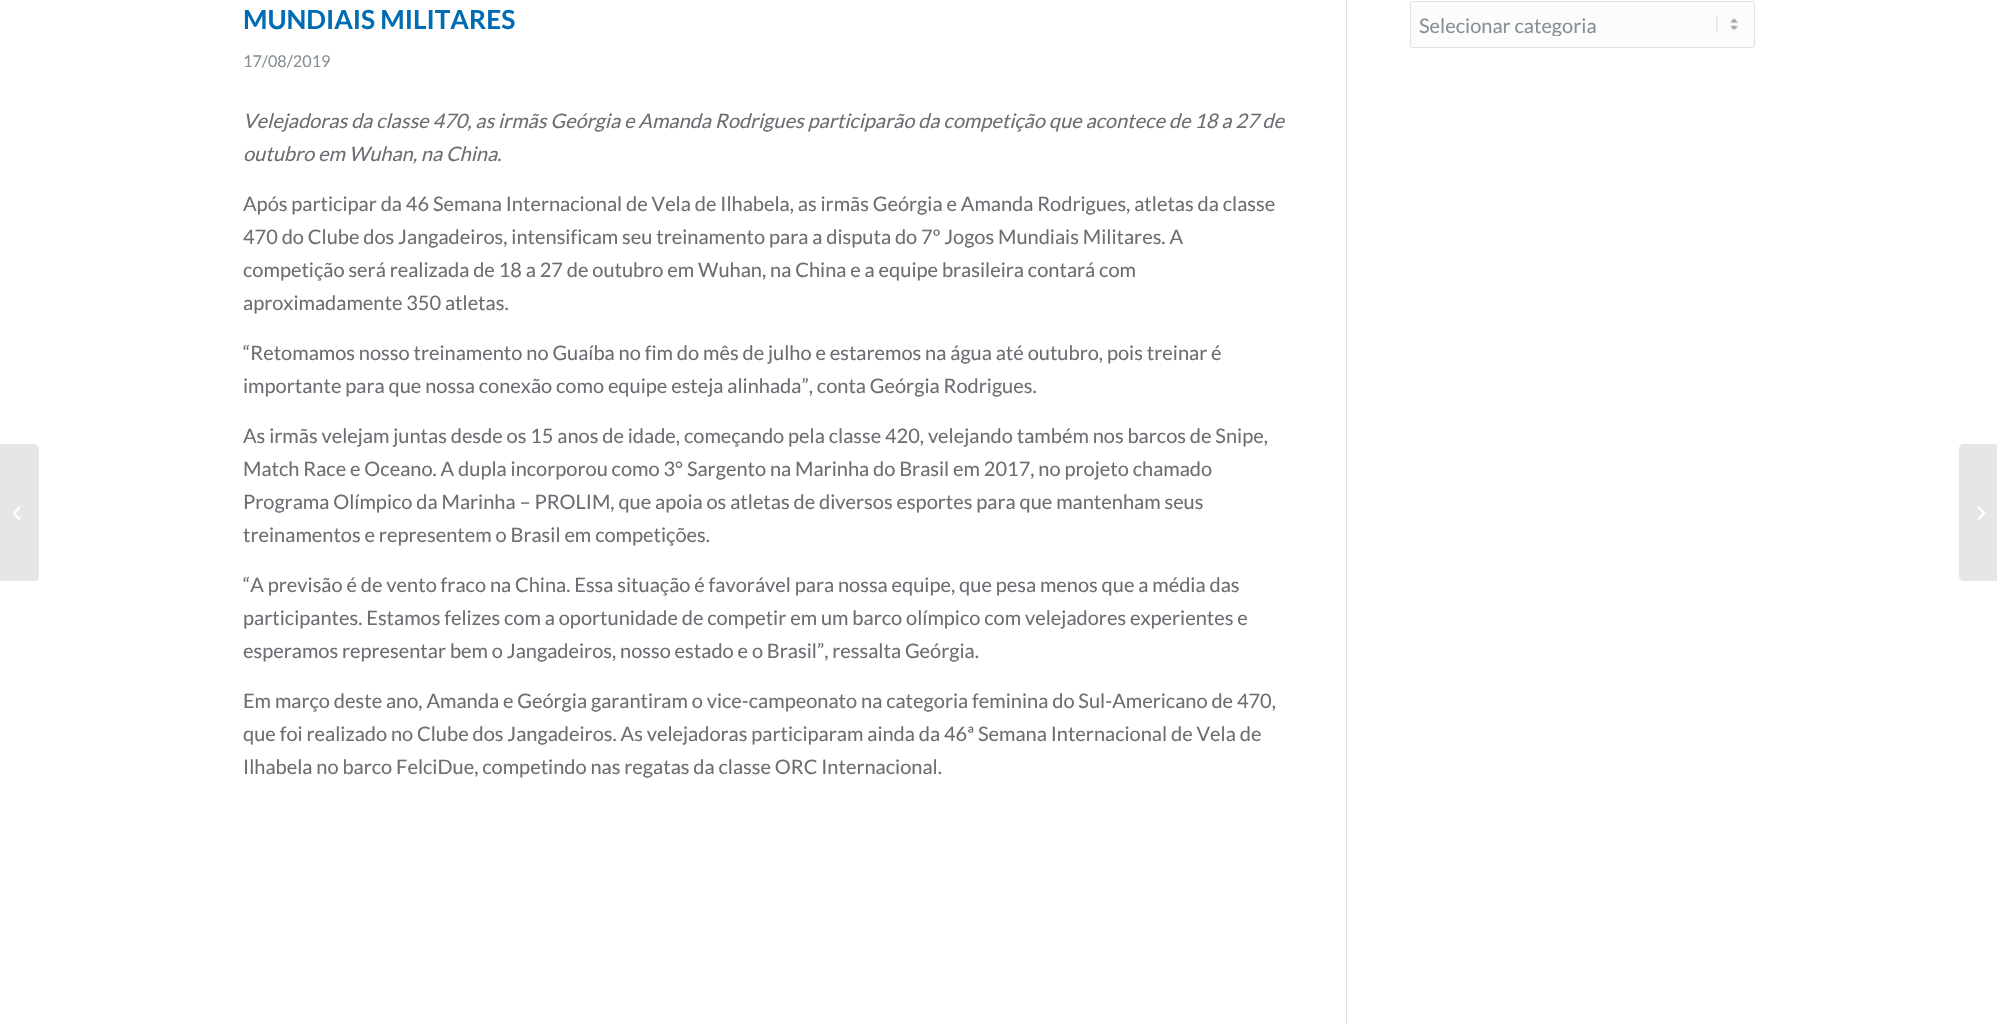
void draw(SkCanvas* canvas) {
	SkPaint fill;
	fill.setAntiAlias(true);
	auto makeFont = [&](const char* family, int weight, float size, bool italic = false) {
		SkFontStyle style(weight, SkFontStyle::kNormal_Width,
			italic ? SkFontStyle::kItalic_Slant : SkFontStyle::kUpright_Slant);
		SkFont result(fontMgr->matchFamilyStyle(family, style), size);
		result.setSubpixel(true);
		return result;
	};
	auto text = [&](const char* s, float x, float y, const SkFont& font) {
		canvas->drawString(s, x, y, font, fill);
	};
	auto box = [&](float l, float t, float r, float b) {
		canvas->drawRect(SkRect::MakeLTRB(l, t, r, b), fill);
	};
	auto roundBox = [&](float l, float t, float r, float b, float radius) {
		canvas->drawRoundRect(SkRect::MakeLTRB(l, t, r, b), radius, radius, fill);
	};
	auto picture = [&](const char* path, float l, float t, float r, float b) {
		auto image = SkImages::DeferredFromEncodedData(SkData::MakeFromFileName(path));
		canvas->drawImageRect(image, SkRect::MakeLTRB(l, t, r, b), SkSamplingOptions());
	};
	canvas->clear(0xFFFFFFFF);
	fill.setColor(0xFFE6E6E6);
	canvas->drawPath(SkPathBuilder().moveTo(0, 444).lineTo(34, 444).cubicTo(37, 444, 39, 446, 39, 449).lineTo(39, 576).cubicTo(39, 579, 37, 581, 34, 581).lineTo(0, 581).close().detach(), fill);
	picture("image0.png", 12, 506, 21, 520);
	fill.setColor(0xFFE1E1E1);
	box(1346, 0, 1347, 1024);
	fill.setColor(0xFFFCFCFC);
	roundBox(1410, 1, 1755, 48, 2.5f);
	picture("image1.png", 1716, 16, 1738, 32);
	fill.setStyle(SkPaint::kStroke_Style);
	fill.setStrokeWidth(1);
	fill.setColor(0xFFE1E1E1);
	canvas->drawRoundRect(SkRect::MakeLTRB(1410.5f, 1.5f, 1754.5f, 47.5f), 2, 2, fill);
	fill.setStyle(SkPaint::kFill_Style);
	fill.setColor(0xFFE6E6E6);
	canvas->drawPath(SkPathBuilder().moveTo(1964, 444).lineTo(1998, 444).lineTo(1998, 581).lineTo(1964, 581).cubicTo(1961, 581, 1959, 579, 1959, 576).lineTo(1959, 449).cubicTo(1959, 446, 1961, 444, 1964, 444).close().detach(), fill);
	picture("image2.png", 1977, 506, 1986, 520);
	auto font1 = makeFont("Lato", 700, 26.25f);
	fill.setColor(0xFF006CB4);
	text("MUNDIAIS MILITARES", 243, 29, font1);
	auto font2 = makeFont("Lato", 400, 16.25f);
	fill.setColor(0xFF889095);
	text("17/08/2019", 243, 67, font2);
	auto font3 = makeFont("Lato", 400, 20, true);
	fill.setColor(0xFF6B6F73);
	text("Velejadoras da classe 470, as irmãs Geórgia e Amanda Rodrigues participarão da competição que acontece de 18 a 27 de", 243, 128, font3);
	text("outubro em Wuhan, na China.", 243, 161, font3);
	auto font4 = makeFont("Lato", 400, 20);
	text("Após participar da 46 Semana Internacional de Vela de Ilhabela, as irmãs Geórgia e Amanda Rodrigues, atletas da classe", 243, 211, font4);
	text("470 do Clube dos Jangadeiros, intensificam seu treinamento para a disputa do 7º Jogos Mundiais Militares. A", 243, 244, font4);
	text("competição será realizada de 18 a 27 de outubro em Wuhan, na China e a equipe brasileira contará com", 243, 277, font4);
	text("aproximadamente 350 atletas.", 243, 310, font4);
	text("“Retomamos nosso treinamento no Guaíba no fim do mês de julho e estaremos na água até outubro, pois treinar é", 243, 360, font4);
	text("importante para que nossa conexão como equipe esteja alinhada”, conta Geórgia Rodrigues.", 243, 393, font4);
	text("As irmãs velejam juntas desde os 15 anos de idade, começando pela classe 420, velejando também nos barcos de Snipe,", 243, 443, font4);
	text("Match Race e Oceano. A dupla incorporou como 3° Sargento na Marinha do Brasil em 2017, no projeto chamado", 243, 476, font4);
	text("Programa Olímpico da Marinha – PROLIM, que apoia os atletas de diversos esportes para que mantenham seus", 243, 509, font4);
	text("treinamentos e representem o Brasil em competições.", 243, 542, font4);
	text("“A previsão é de vento fraco na China. Essa situação é favorável para nossa equipe, que pesa menos que a média das", 243, 592, font4);
	text("participantes. Estamos felizes com a oportunidade de competir em um barco olímpico com velejadores experientes e", 243, 625, font4);
	text("esperamos representar bem o Jangadeiros, nosso estado e o Brasil”, ressalta Geórgia.", 243, 658, font4);
	text("Em março deste ano, Amanda e Geórgia garantiram o vice-campeonato na categoria feminina do Sul-Americano de 470,", 243, 708, font4);
	text("que foi realizado no Clube dos Jangadeiros. As velejadoras participaram ainda da 46ª Semana Internacional de Vela de", 243, 741, font4);
	text("Ilhabela no barco FelciDue, competindo nas regatas da classe ORC Internacional.", 243, 774, font4);
	canvas->save();
	canvas->clipRect(SkRect::MakeLTRB(1419, 13, 1746, 36));
	fill.setColor(0xFF889095);
	text("Selecionar categoria", 1419, 33, font4);
	canvas->restore();
}
